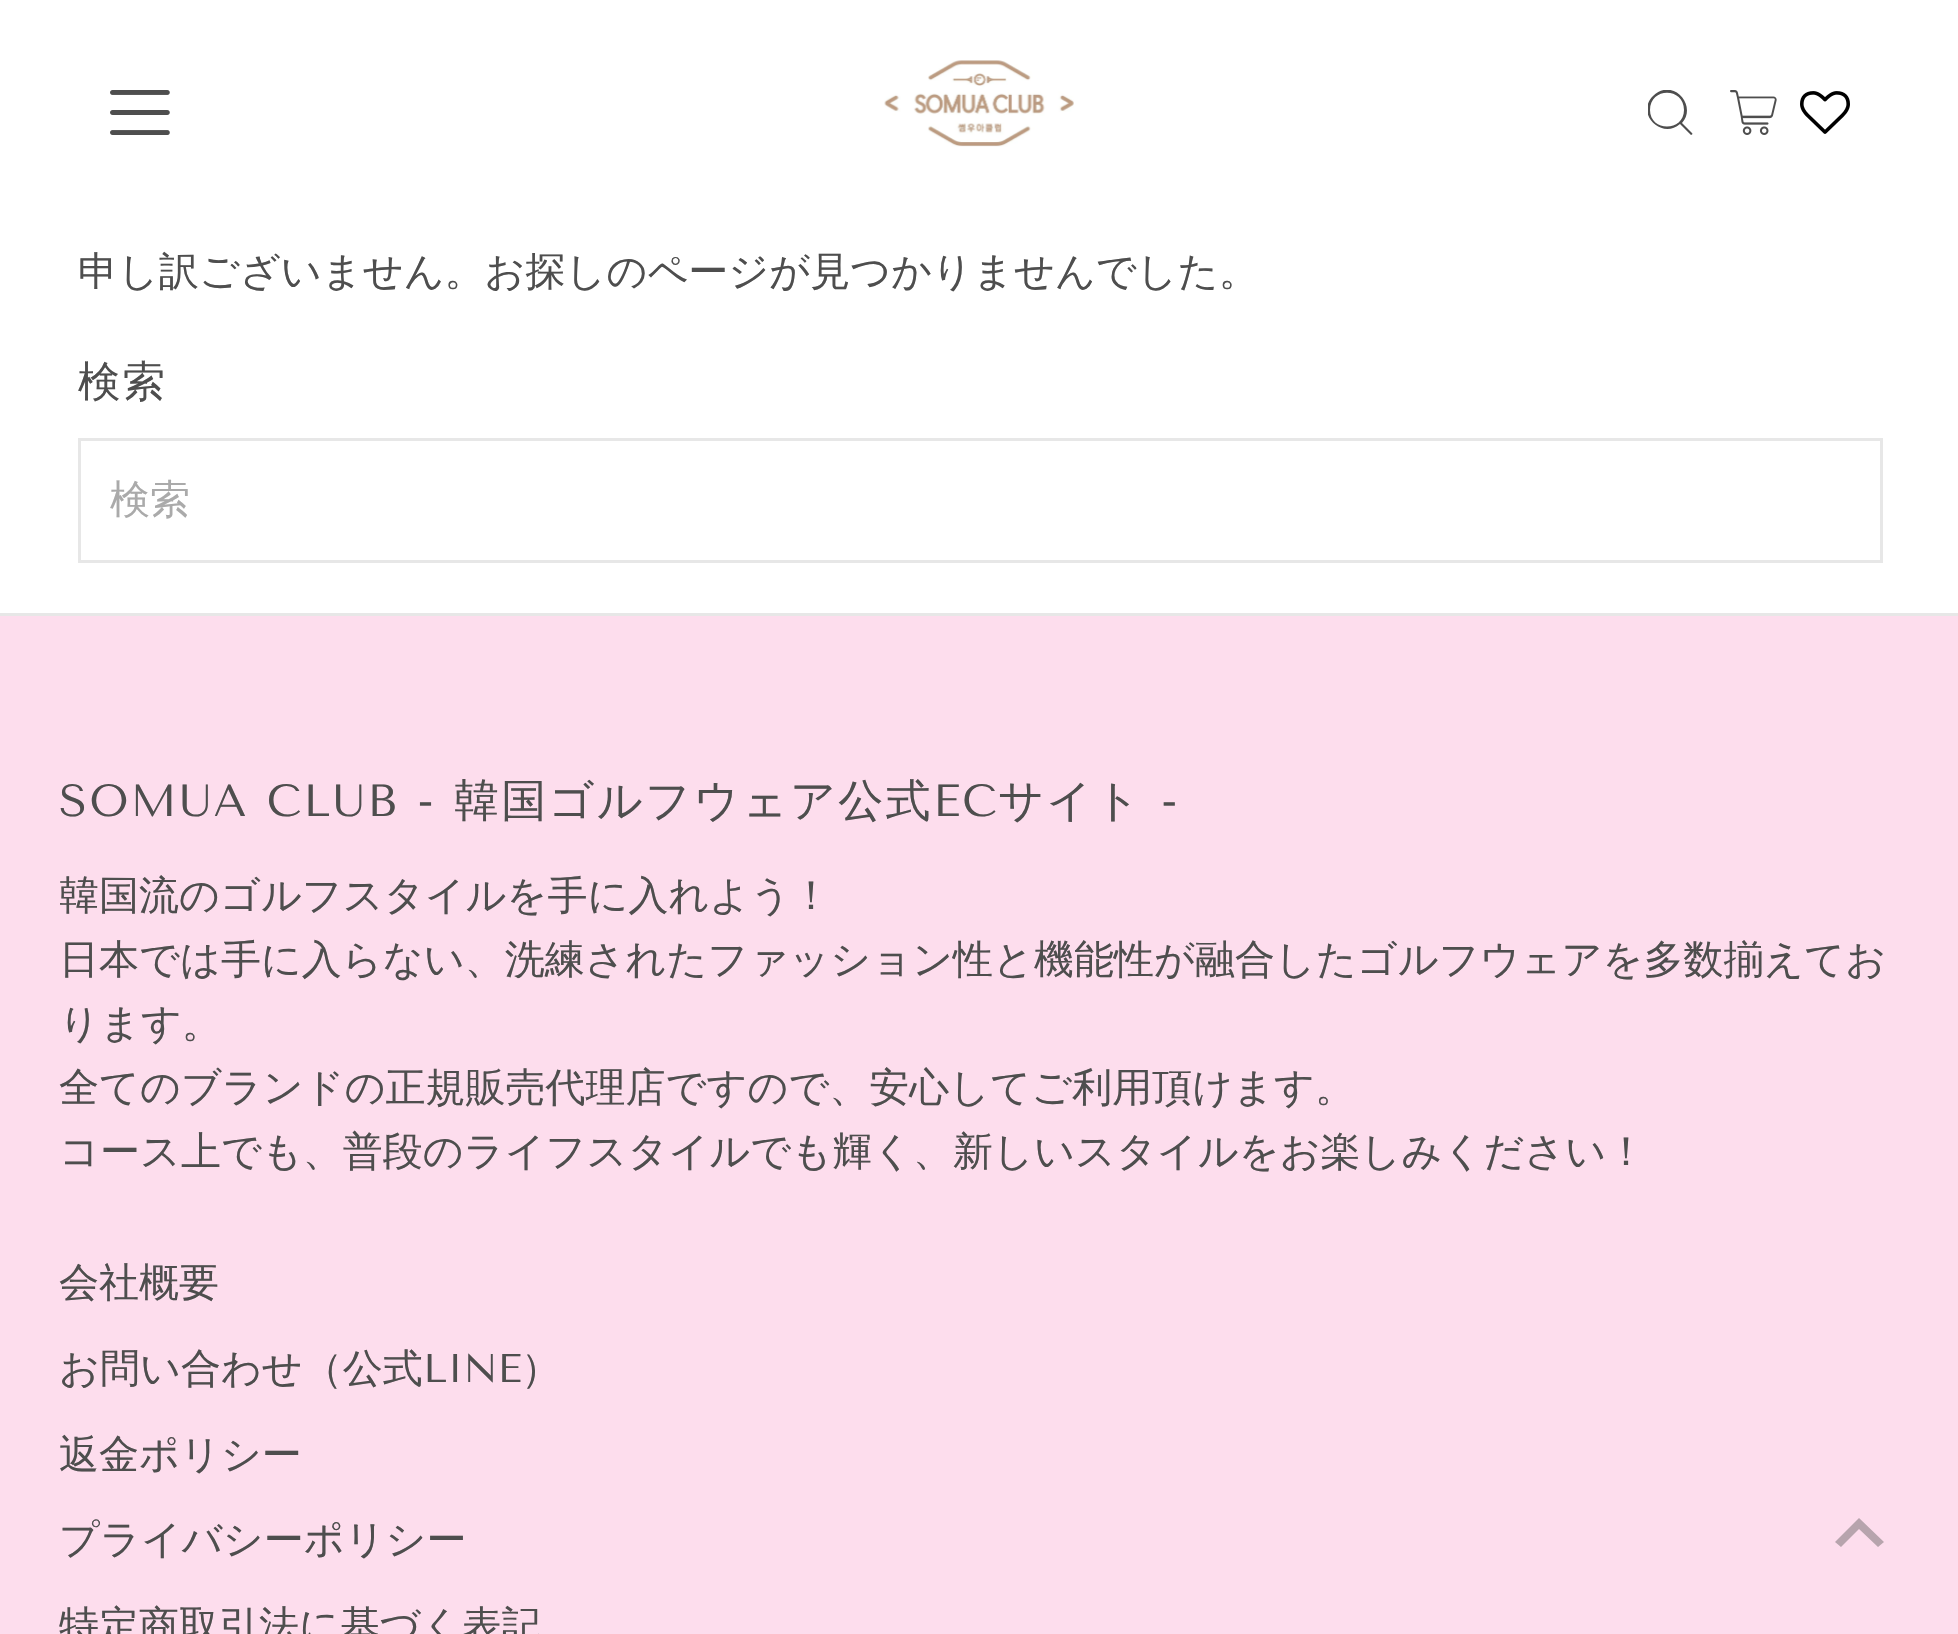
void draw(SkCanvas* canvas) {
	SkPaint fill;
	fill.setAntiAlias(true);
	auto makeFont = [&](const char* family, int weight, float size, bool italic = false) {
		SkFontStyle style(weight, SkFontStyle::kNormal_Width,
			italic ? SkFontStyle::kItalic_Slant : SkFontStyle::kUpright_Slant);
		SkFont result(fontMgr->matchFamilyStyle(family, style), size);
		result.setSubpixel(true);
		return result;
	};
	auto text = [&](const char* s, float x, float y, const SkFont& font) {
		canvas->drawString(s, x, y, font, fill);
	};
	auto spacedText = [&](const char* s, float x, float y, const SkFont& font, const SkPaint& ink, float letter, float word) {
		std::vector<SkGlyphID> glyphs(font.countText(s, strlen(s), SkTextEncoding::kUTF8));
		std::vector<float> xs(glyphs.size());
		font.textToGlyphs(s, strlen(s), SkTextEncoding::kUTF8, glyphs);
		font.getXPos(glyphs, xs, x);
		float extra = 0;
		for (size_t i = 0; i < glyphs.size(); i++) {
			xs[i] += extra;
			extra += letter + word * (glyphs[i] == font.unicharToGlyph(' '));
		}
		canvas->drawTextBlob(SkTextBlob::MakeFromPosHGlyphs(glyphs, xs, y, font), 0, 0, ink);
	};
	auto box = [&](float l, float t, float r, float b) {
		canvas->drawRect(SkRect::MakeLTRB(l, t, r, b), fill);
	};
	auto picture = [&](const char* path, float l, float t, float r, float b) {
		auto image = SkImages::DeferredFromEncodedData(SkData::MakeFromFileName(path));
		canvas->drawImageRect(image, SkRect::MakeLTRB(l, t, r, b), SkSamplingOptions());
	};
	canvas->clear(0xFFFFFFFF);
	picture("image0.png", 110, 90, 170, 135);
	picture("image1.png", 884, 60, 1074, 147);
	canvas->save();
	canvas->clipRect(SkRect::MakeLTRB(1648, 90, 1693, 135));
	fill.setColor(0xFF4E4E4E);
	canvas->drawPath(SkPathBuilder().moveTo(1692, 133).lineTo(1682, 123).cubicTo(1698, 105, 1672, 77, 1653, 96).cubicTo(1635, 114, 1662, 140, 1680, 124).lineTo(1691, 135).cubicTo(1692, 135, 1693, 134, 1692, 133).close().moveTo(1650, 110).cubicTo(1650, 87, 1684, 87, 1684, 110).cubicTo(1684, 132, 1650, 132, 1650, 110).close().detach(), fill);
	canvas->restore();
	picture("image2.png", 1730, 90, 1777, 135);
	picture("image3.png", 1800, 91, 1850, 134);
	fill.setStyle(SkPaint::kStroke_Style);
	fill.setStrokeWidth(3);
	fill.setColor(0xFFE7E7E7);
	canvas->drawRect(SkRect::MakeLTRB(79.5f, 439.5f, 1881.5f, 561.5f), fill);
	fill.setStyle(SkPaint::kFill_Style);
	fill.setColor(0xFFFDDDED);
	box(0, 616, 1958, 1634);
	fill.setColor(0xFFE7E7E7);
	box(0, 613, 1958, 616);
	fill.setColor(0xFFB7A4AD);
	canvas->drawPath(SkPathBuilder().moveTo(1859, 1518).lineTo(1835, 1542).lineTo(1841, 1547).lineTo(1859, 1529).lineTo(1878, 1547).lineTo(1884, 1542).close().detach(), fill);
	auto font1 = makeFont("WenQuanYi Zen Hei", 500, 40);
	fill.setColor(0xFF4E4E4E);
	text("申し訳ございません。お探しのページが見つかりませんでした。", 78, 285, font1);
	auto font2 = makeFont("WenQuanYi Zen Hei", 500, 42.5f);
	spacedText("検索", 78, 396, font2, fill, 2, 0);
	fill.setColor(0xFFAAAAAA);
	text("検索", 110, 513, font1);
	auto font3 = makeFont("Tenor Sans", 400, 45);
	fill.setColor(0xFF4E4E4E);
	spacedText("SOMUA CLUB -", 59, 816, font3, fill, 2.25f, 0);
	auto font4 = makeFont("WenQuanYi Zen Hei", 500, 45);
	spacedText("韓国ゴルフウェア公式", 454, 816, font4, fill, 2.25f, 0);
	spacedText("EC", 933, 816, font3, fill, 2.25f, 0);
	spacedText("サイト", 998, 816, font4, fill, 2.25f, 0);
	spacedText("-", 1161, 816, font3, fill, 2.25f, 0);
	text("韓国流のゴルフスタイルを手に入れよう！", 59, 909, font1);
	text("日本では手に入らない、洗練されたファッション性と機能性が融合したゴルフウェアを多数揃えてお", 59, 973, font1);
	text("ります。", 59, 1037, font1);
	text("全てのブランドの正規販売代理店ですので、安心してご利用頂けます。", 59, 1101, font1);
	text("コース上でも、普段のライフスタイルでも輝く、新しいスタイルをお楽しみください！", 59, 1165, font1);
	text("会社概要", 59, 1296, font1);
	text("お問い合わせ（公式", 59, 1382, font1);
	auto font5 = makeFont("Tenor Sans", 400, 40);
	text("LINE", 423, 1382, font5);
	text("）", 521, 1382, font1);
	text("返金ポリシー", 59, 1468, font1);
	text("プライバシーポリシー", 59, 1553, font1);
	text("特定商取引法に基づく表記", 59, 1639, font1);
}
